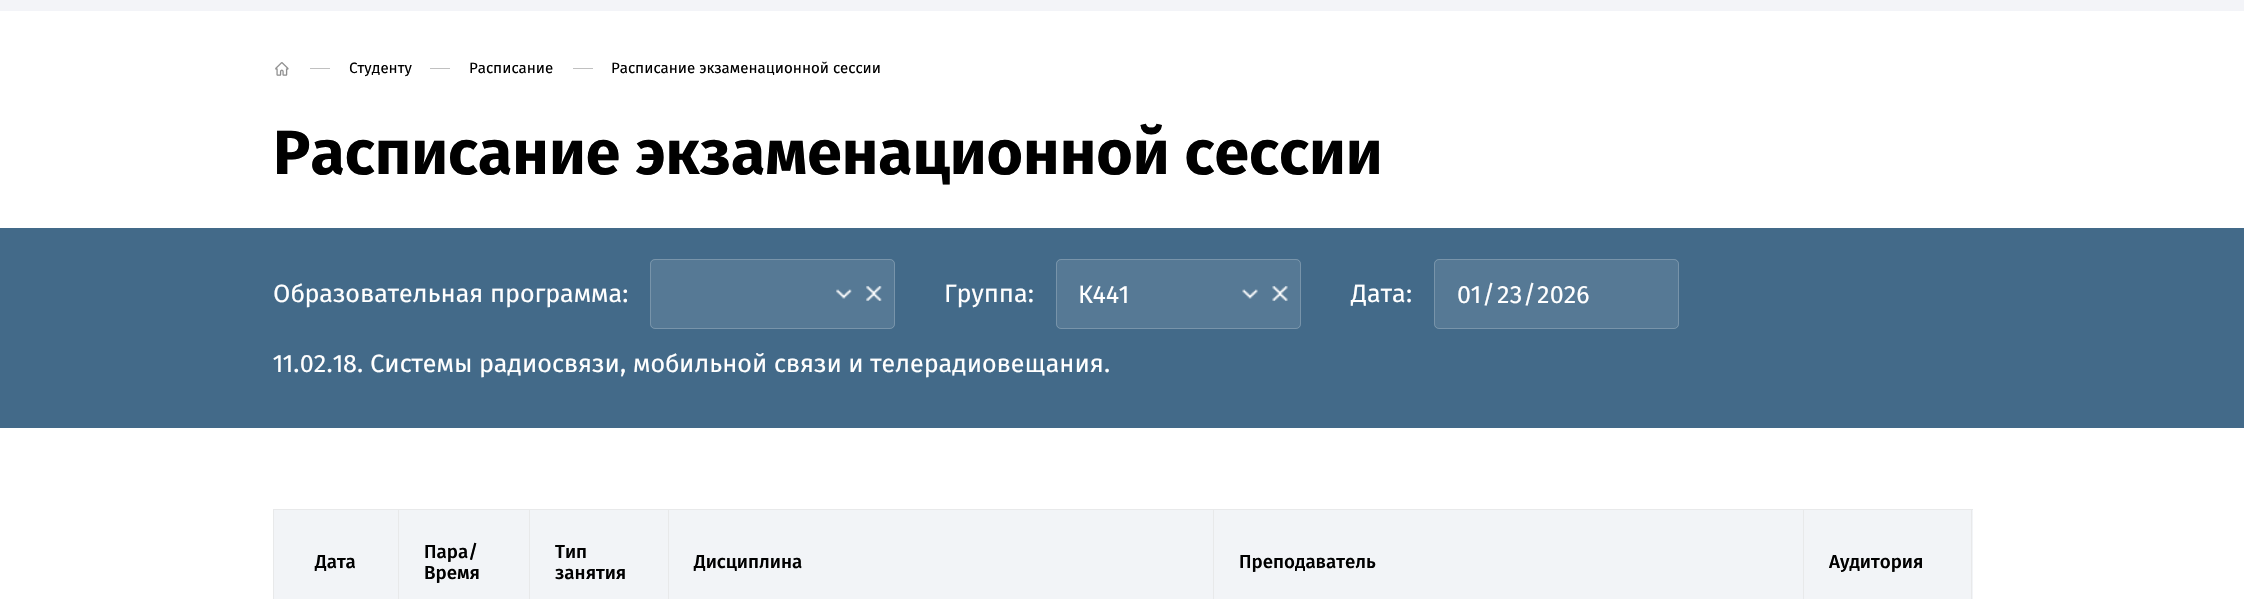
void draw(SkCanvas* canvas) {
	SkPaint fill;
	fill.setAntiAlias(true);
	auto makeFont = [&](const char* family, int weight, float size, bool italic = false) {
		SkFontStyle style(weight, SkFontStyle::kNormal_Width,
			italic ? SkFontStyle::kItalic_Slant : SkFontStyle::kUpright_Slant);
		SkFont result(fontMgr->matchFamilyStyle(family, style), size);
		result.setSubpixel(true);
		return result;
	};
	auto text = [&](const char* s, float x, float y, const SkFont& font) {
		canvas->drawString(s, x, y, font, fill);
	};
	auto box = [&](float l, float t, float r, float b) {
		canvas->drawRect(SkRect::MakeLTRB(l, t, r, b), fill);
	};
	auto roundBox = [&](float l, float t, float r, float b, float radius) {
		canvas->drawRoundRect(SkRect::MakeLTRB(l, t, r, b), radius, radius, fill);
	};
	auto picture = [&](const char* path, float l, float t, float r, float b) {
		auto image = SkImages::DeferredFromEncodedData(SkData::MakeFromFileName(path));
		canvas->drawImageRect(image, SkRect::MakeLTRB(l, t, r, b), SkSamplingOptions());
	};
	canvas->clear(0xFFFFFFFF);
	fill.setColor(0xFFF3F4F8);
	box(0, 0, 2244, 11);
	picture("image0.png", 275, 62, 289, 76);
	fill.setColor(0xFFC0C0C0);
	box(310, 68, 330, 69);
	box(430, 68, 450, 69);
	box(573, 68, 593, 69);
	fill.setColor(0xFF436A89);
	box(0, 228, 2244, 428);
	fill.setColor(0xFF567995);
	roundBox(650, 259, 895, 329, 5);
	picture("image1.png", 836, 289, 852, 299);
	fill.setStyle(SkPaint::kStroke_Style);
	fill.setStrokeWidth(1);
	fill.setColor(0x33FFFFFF);
	canvas->drawRoundRect(SkRect::MakeLTRB(650.5f, 259.5f, 894.5f, 328.5f), 4.5f, 4.5f, fill);
	picture("image2.png", 866, 286, 882, 301);
	fill.setStyle(SkPaint::kFill_Style);
	fill.setColor(0xFF567995);
	roundBox(1056, 259, 1301, 329, 5);
	picture("image3.png", 1242, 289, 1258, 299);
	fill.setStyle(SkPaint::kStroke_Style);
	fill.setColor(0x33FFFFFF);
	canvas->drawRoundRect(SkRect::MakeLTRB(1056.5f, 259.5f, 1300.5f, 328.5f), 4.5f, 4.5f, fill);
	picture("image4.png", 1272, 286, 1288, 301);
	fill.setStyle(SkPaint::kFill_Style);
	fill.setColor(0xFF567995);
	roundBox(1434, 259, 1679, 329, 5);
	fill.setStyle(SkPaint::kStroke_Style);
	fill.setColor(0x33FFFFFF);
	canvas->drawRoundRect(SkRect::MakeLTRB(1434.5f, 259.5f, 1678.5f, 328.5f), 4.5f, 4.5f, fill);
	fill.setStyle(SkPaint::kFill_Style);
	fill.setColor(0xFFE8E9EA);
	box(273, 509, 1973, 510);
	fill.setColor(0xFFF2F4F7);
	box(274, 510, 1973, 599);
	fill.setColor(0xFFE8E9EA);
	box(1971, 509, 1972, 599);
	box(273, 509, 274, 599);
	box(398, 509, 399, 599);
	box(529, 509, 530, 599);
	box(668, 509, 669, 599);
	box(1213, 509, 1214, 599);
	box(1803, 509, 1804, 599);
	auto font1 = makeFont("Fira Sans", 400, 15);
	fill.setColor(0xFF000000);
	text("Студенту", 349, 73, font1);
	text("Расписание", 469, 73, font1);
	text("Расписание экзаменационной сессии", 611, 73, font1);
	auto font2 = makeFont("Fira Sans", 700, 62.5f);
	text("Расписание экзаменационной сессии", 273, 174, font2);
	auto font3 = makeFont("Fira Sans", 400, 25);
	fill.setColor(0xFFFFFFFF);
	text("Образовательная программа:", 273, 302, font3);
	text("Группа:", 944, 302, font3);
	text("К441", 1078, 303, font3);
	text("Дата:", 1351, 302, font3);
	text("01", 1457, 303, font3);
	text("/", 1482, 303, font3);
	text("23", 1497, 303, font3);
	text("/", 1523, 303, font3);
	text("2026", 1537, 303, font3);
	text("11.02.18. Системы радиосвязи, мобильной связи и телерадиовещания.", 273, 372, font3);
	auto font4 = makeFont("Fira Sans", 500, 18.75f);
	fill.setColor(0xFF000000);
	text("Дата", 315, 568, font4);
	text("Пара/", 424, 558, font4);
	text("Время", 424, 579, font4);
	text("Тип", 555, 558, font4);
	text("занятия", 555, 579, font4);
	text("Дисциплина", 694, 568, font4);
	text("Преподаватель", 1239, 568, font4);
	text("Аудитория", 1829, 568, font4);
}
